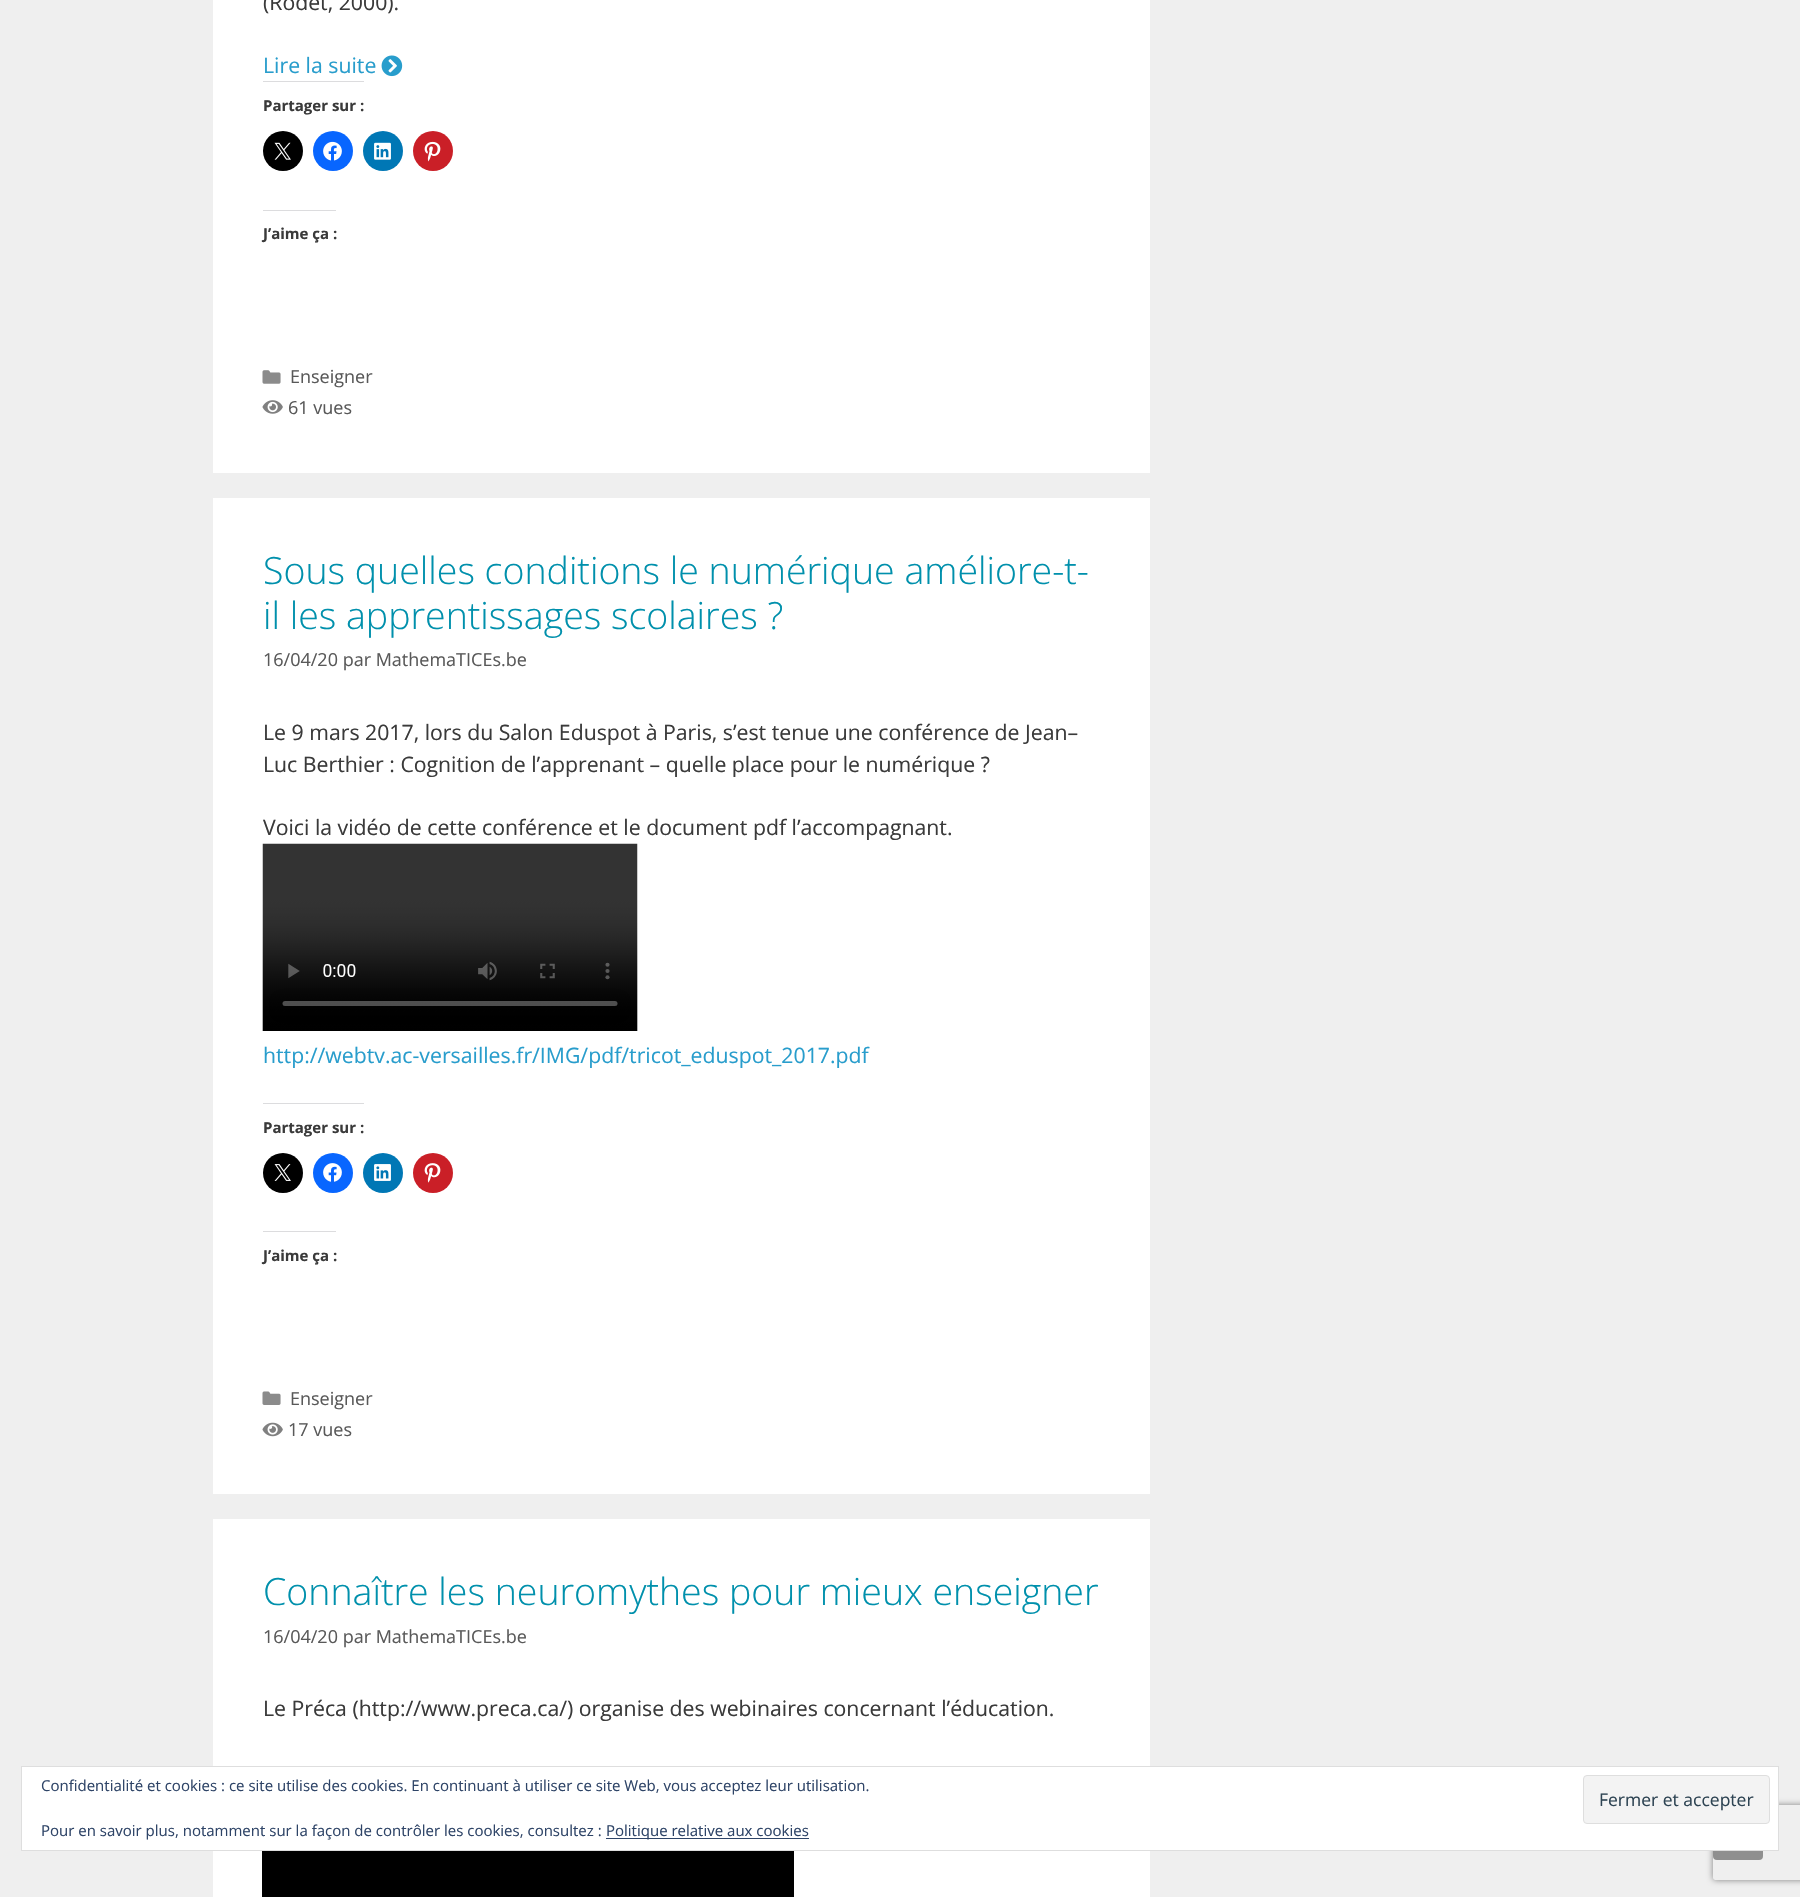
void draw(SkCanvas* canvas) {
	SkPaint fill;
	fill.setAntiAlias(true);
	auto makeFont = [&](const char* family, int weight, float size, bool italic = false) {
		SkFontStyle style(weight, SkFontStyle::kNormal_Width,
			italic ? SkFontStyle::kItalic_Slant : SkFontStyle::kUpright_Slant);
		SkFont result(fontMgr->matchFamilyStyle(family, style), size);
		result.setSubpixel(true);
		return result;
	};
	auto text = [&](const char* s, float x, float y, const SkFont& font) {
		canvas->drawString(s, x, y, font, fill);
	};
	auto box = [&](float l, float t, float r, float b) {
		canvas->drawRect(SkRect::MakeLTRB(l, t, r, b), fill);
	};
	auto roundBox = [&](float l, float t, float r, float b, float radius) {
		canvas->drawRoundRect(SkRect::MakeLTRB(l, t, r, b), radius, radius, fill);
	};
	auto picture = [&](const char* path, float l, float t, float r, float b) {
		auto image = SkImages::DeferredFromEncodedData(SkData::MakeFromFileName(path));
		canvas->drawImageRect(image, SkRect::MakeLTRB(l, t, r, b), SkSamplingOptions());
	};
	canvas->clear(0xFFEFEFEF);
	fill.setColor(0xFFFFFFFF);
	box(213, 0, 1150, 473);
	picture("image0.png", 381, 55, 403, 77);
	fill.setColor(0xFFDCDCDE);
	box(263, 81, 364, 82);
	fill.setColor(0xFF000000);
	canvas->drawCircle(283, 151, 20, fill);
	picture("image1.png", 274, 142, 291, 160);
	fill.setColor(0xFF0866FF);
	canvas->drawCircle(333, 151, 20, fill);
	picture("image2.png", 323, 141, 342, 161);
	fill.setColor(0xFF0077B5);
	canvas->drawCircle(383, 151, 20, fill);
	picture("image3.png", 374, 142, 391, 160);
	fill.setColor(0xFFCA1F27);
	canvas->drawCircle(433, 151, 20, fill);
	picture("image4.png", 424, 141, 441, 162);
	fill.setColor(0xFFDCDCDE);
	box(263, 210, 336, 211);
	picture("image5.png", 262, 370, 281, 384);
	picture("image6.png", 262, 400, 283, 414);
	fill.setColor(0xFFFFFFFF);
	box(213, 498, 1150, 1494);
	picture("image7.png", 262, 843, 638, 1031);
	fill.setColor(0xFFDCDCDE);
	box(263, 1103, 364, 1104);
	fill.setColor(0xFF000000);
	canvas->drawCircle(283, 1173, 20, fill);
	picture("image8.png", 274, 1164, 291, 1181);
	fill.setColor(0xFF0866FF);
	canvas->drawCircle(333, 1173, 20, fill);
	picture("image9.png", 323, 1163, 342, 1182);
	fill.setColor(0xFF0077B5);
	canvas->drawCircle(383, 1173, 20, fill);
	picture("image10.png", 374, 1164, 391, 1181);
	fill.setColor(0xFFCA1F27);
	canvas->drawCircle(433, 1173, 20, fill);
	picture("image11.png", 424, 1163, 441, 1183);
	fill.setColor(0xFFDCDCDE);
	box(263, 1231, 336, 1232);
	picture("image12.png", 262, 1391, 281, 1405);
	picture("image13.png", 262, 1422, 283, 1437);
	fill.setColor(0xFFFFFFFF);
	box(213, 1519, 1150, 1897);
	fill.setColor(0xFF000000);
	box(262, 1851, 794, 1897);
	canvas->save();
	canvas->clipPath(SkPathBuilder(SkPathFillType::kEvenOdd).moveTo(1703, 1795).lineTo(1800, 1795).lineTo(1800, 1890).lineTo(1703, 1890).close().moveTo(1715.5f, 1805).lineTo(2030.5f, 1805).cubicTo(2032, 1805, 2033, 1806, 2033, 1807.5f).lineTo(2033, 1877.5f).cubicTo(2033, 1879, 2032, 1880, 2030.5f, 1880).lineTo(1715.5f, 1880).cubicTo(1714, 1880, 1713, 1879, 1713, 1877.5f).lineTo(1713, 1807.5f).cubicTo(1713, 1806, 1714, 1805, 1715.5f, 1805).close().detach(), true);
	fill.setColor(0xFF808080);
	fill.setMaskFilter(SkMaskFilter::MakeBlur(kNormal_SkBlurStyle, 3));
	canvas->drawRoundRect(SkRect::MakeLTRB(1713, 1805, 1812, 1880), 2.5f, 2.5f, fill);
	fill.setMaskFilter(nullptr);
	canvas->restore();
	fill.setColor(0xFF8F8F8F);
	roundBox(1713, 1810, 1763, 1860, 4);
	fill.setColor(0xFFFFFFFF);
	canvas->drawRect(SkRect::MakeLTRB(21.5f, 1766.5f, 1778.5f, 1850.5f), fill);
	fill.setStyle(SkPaint::kStroke_Style);
	fill.setStrokeWidth(1);
	fill.setColor(0xFFDEDEDE);
	canvas->drawRect(SkRect::MakeLTRB(21.5f, 1766.5f, 1778.5f, 1850.5f), fill);
	fill.setStyle(SkPaint::kFill_Style);
	fill.setColor(0xFFF3F3F3);
	canvas->drawRoundRect(SkRect::MakeLTRB(1583.5f, 1775.5f, 1769.5f, 1823.5f), 3.5f, 3.5f, fill);
	fill.setStyle(SkPaint::kStroke_Style);
	fill.setColor(0xFFDEDEDE);
	canvas->drawRoundRect(SkRect::MakeLTRB(1583.5f, 1775.5f, 1769.5f, 1823.5f), 3.5f, 3.5f, fill);
	fill.setStyle(SkPaint::kFill_Style);
	fill.setColor(0xFF2E4467);
	box(606, 1838, 809, 1839);
	auto font1 = makeFont("Open Sans", 400, 21.25f);
	fill.setColor(0xFF3A3A3A);
	text("(Rodet, 2000).", 263, 10, font1);
	fill.setColor(0xFF289DCC);
	text("Lire la suite", 263, 73, font1);
	auto font2 = makeFont("Open Sans", 700, 15);
	fill.setColor(0xFF3A3A3A);
	text("Partager sur :", 263, 111, font2);
	text("J’aime ça :", 263, 239, font2);
	auto font3 = makeFont("Open Sans", 400, 18);
	fill.setColor(0xFF595959);
	text("Enseigner", 290, 383, font3);
	text("61 vues", 288, 414, font3);
	auto font4 = makeFont("Open Sans", 300, 37.5f);
	fill.setColor(0xFF0090AC);
	text("Sous quelles conditions le numérique améliore-t-", 263, 584, font4);
	text("il les apprentissages scolaires ?", 263, 629, font4);
	fill.setColor(0xFF595959);
	text("16/04/20 par MathemaTICEs.be", 263, 666, font3);
	fill.setColor(0xFF3A3A3A);
	text("Le 9 mars 2017, lors du Salon Eduspot à Paris, s’est tenue une conférence de Jean–", 263, 740, font1);
	text("Luc Berthier : Cognition de l’apprenant – quelle place pour le numérique ?", 263, 772, font1);
	text("Voici la vidéo de cette conférence et le document pdf l’accompagnant.", 263, 835, font1);
	fill.setColor(0xFF289DCC);
	text("http://webtv.ac-versailles.fr/IMG/pdf/tricot_eduspot_2017.pdf", 263, 1063, font1);
	fill.setColor(0xFF3A3A3A);
	text("Partager sur :", 263, 1133, font2);
	text("J’aime ça :", 263, 1261, font2);
	fill.setColor(0xFF595959);
	text("Enseigner", 290, 1405, font3);
	text("17 vues", 288, 1436, font3);
	fill.setColor(0xFF0090AC);
	text("Connaître les neuromythes pour mieux enseigner", 263, 1605, font4);
	fill.setColor(0xFF595959);
	text("16/04/20 par MathemaTICEs.be", 263, 1643, font3);
	fill.setColor(0xFF3A3A3A);
	text("Le Préca (http://www.preca.ca/) organise des webinaires concernant l’éducation.", 263, 1716, font1);
	auto font5 = makeFont("Open Sans", 400, 15);
	fill.setColor(0xFF2E4467);
	text("Confidentialité et cookies : ce site utilise des cookies. En continuant à utiliser ce site Web, vous acceptez leur utilisation.", 41, 1791, font5);
	auto font6 = makeFont("Open Sans", 400, 17.5f);
	fill.setColor(0xFF2E4453);
	text("Fermer et accepter", 1599, 1806, font6);
	fill.setColor(0xFF2E4467);
	text("Pour en savoir plus, notamment sur la façon de contrôler les cookies, consultez :", 41, 1836, font5);
	text("Politique relative aux cookies", 606, 1836, font5);
}
